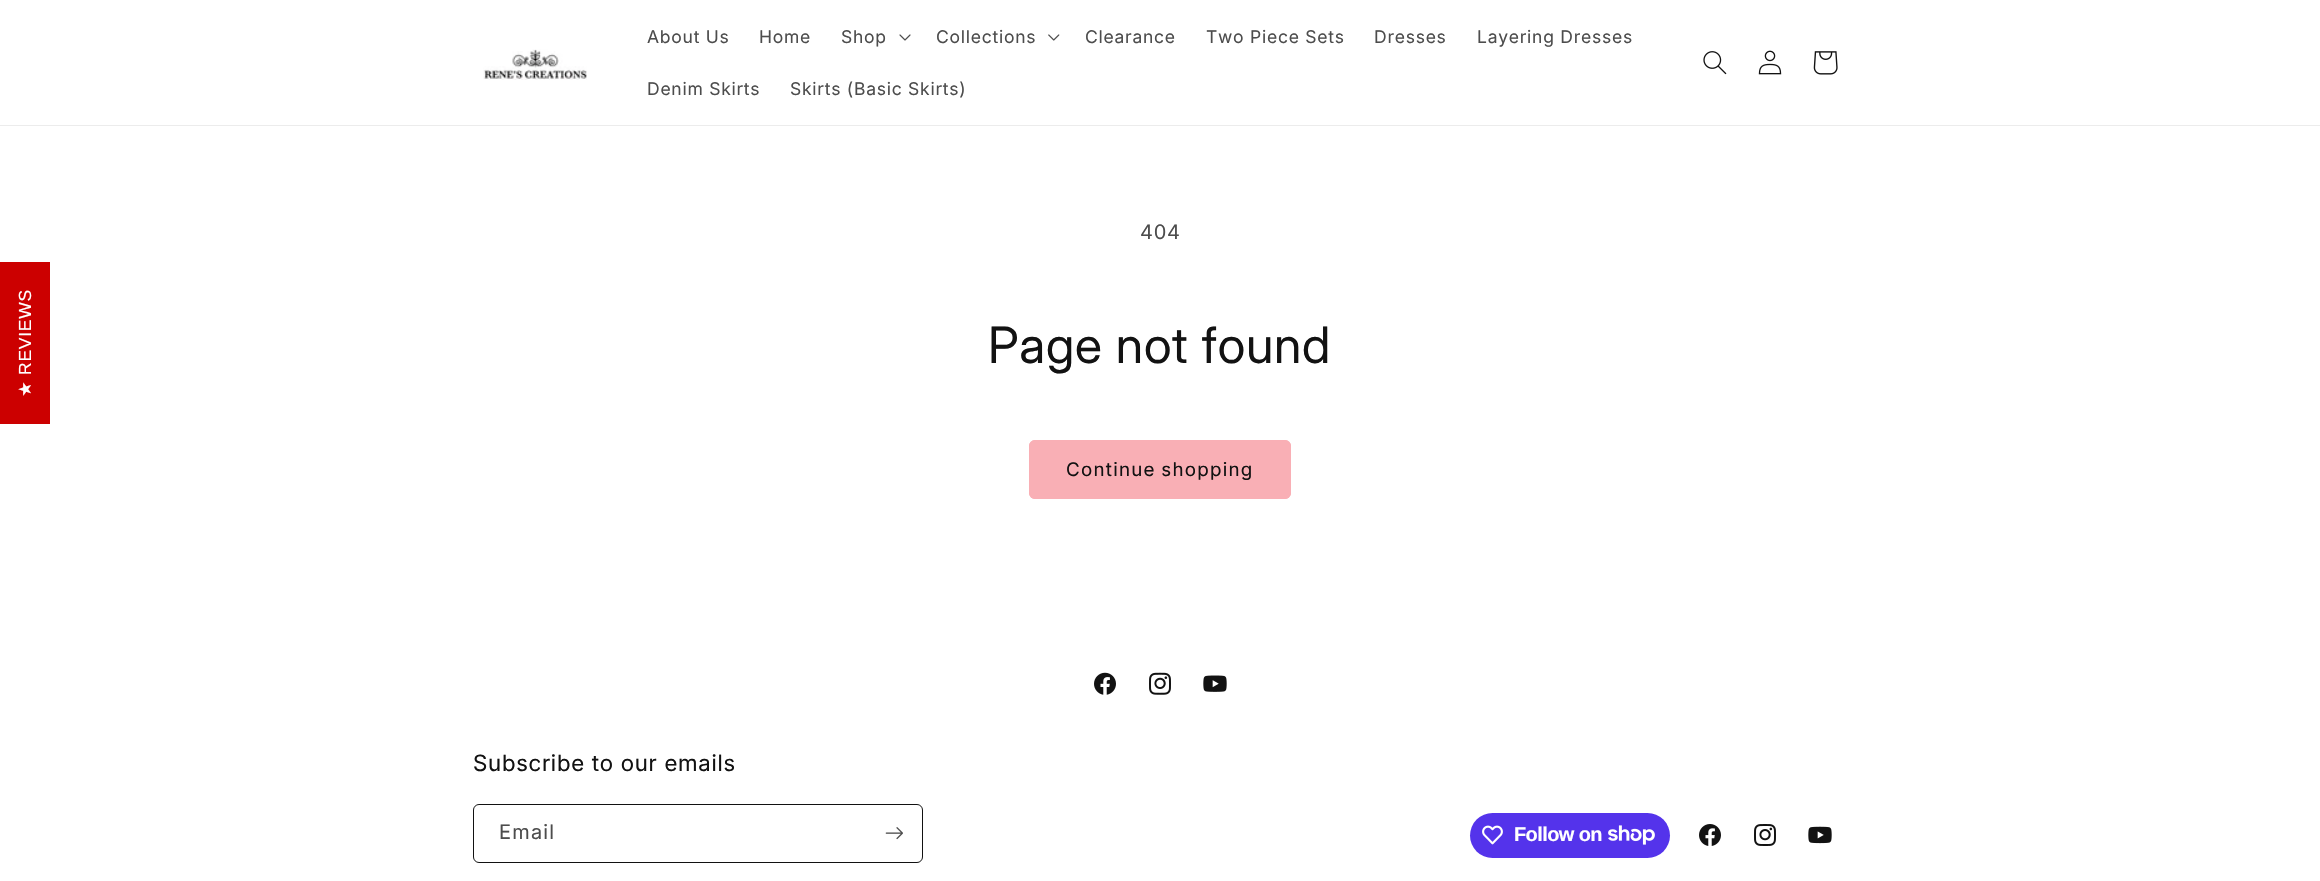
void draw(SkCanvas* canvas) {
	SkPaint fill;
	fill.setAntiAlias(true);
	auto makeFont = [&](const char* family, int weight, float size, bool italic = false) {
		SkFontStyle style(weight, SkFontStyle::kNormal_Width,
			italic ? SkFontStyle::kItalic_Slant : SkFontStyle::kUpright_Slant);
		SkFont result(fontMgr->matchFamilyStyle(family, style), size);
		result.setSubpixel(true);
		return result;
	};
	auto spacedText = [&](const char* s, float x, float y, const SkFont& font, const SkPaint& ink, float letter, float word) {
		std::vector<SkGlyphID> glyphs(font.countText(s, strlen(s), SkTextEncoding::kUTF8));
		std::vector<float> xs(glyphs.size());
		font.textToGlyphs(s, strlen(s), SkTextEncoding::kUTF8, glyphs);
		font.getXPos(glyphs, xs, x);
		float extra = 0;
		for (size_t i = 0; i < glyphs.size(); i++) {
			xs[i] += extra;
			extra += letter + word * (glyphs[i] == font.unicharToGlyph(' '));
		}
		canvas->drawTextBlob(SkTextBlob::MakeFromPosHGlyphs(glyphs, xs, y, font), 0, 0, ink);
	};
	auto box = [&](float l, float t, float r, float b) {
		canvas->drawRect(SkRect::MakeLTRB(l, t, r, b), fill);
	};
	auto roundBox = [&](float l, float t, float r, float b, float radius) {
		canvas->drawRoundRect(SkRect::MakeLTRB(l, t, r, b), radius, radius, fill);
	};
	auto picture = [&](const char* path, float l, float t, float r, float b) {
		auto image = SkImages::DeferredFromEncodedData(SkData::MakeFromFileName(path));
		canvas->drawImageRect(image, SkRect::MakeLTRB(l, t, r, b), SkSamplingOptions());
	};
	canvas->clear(0xFFFFFFFF);
	fill.setColor(0xFFECECEC);
	box(0, 125, 2320, 126);
	picture("image0.png", 483, 49, 587, 80);
	picture("image1.png", 899, 34, 911, 41);
	picture("image2.png", 1048, 34, 1060, 41);
	picture("image3.png", 1703, 51, 1727, 75);
	picture("image4.png", 1758, 50, 1782, 75);
	picture("image5.png", 1813, 51, 1838, 75);
	fill.setColor(0xFFCC0000);
	box(0, 262, 50, 424);
	fill.setColor(0xFFF9AFB5);
	roundBox(1029, 440, 1291, 499, 6);
	fill.setStyle(SkPaint::kStroke_Style);
	fill.setStrokeWidth(1);
	canvas->drawRoundRect(SkRect::MakeLTRB(1029.5f, 440.5f, 1290.5f, 498.5f), 5.5f, 5.5f, fill);
	picture("image6.png", 1094, 672, 1116, 695);
	picture("image7.png", 1149, 672, 1171, 695);
	picture("image8.png", 1203, 675, 1227, 692);
	fill.setColor(0xFF121212);
	canvas->drawRoundRect(SkRect::MakeLTRB(473.5f, 804.5f, 922.5f, 862.5f), 5.5f, 5.5f, fill);
	picture("image9.png", 885, 827, 903, 840);
	fill.setStyle(SkPaint::kFill_Style);
	fill.setColor(0xFF5433EB);
	roundBox(1470, 813, 1670, 858, 22.5f);
	picture("image10.png", 1482, 825, 1503, 845);
	picture("image11.png", 1608, 825, 1655, 845);
	picture("image12.png", 1699, 824, 1721, 846);
	picture("image13.png", 1754, 824, 1776, 846);
	picture("image14.png", 1808, 826, 1832, 844);
	auto font1 = makeFont("Inter", 400, 17.5f);
	fill.setColor(0xFF4D4D4D);
	spacedText("About Us", 647, 43, font1, fill, 0.75f, 0);
	spacedText("Home", 759, 43, font1, fill, 0.75f, 0);
	spacedText("Shop", 841, 43, font1, fill, 0.75f, 0);
	spacedText("Collections", 936, 43, font1, fill, 0.75f, 0);
	spacedText("Clearance", 1085, 43, font1, fill, 0.75f, 0);
	spacedText("Two Piece Sets", 1206, 43, font1, fill, 0.75f, 0);
	spacedText("Dresses", 1374, 43, font1, fill, 0.75f, 0);
	spacedText("Layering Dresses", 1477, 43, font1, fill, 0.75f, 0);
	spacedText("Denim Skirts", 647, 95, font1, fill, 0.75f, 0);
	spacedText("Skirts (Basic Skirts)", 790, 95, font1, fill, 0.75f, 0);
	auto font2 = makeFont("Liberation Sans", 400, 17.5f);
	fill.setColor(0xFFFFFFFF);
	canvas->save();
	canvas->rotate(-90, 31, 375);
	spacedText("REVIEWS", 31, 375, font2, fill, 0.75f, 0);
	canvas->restore();
	auto font3 = makeFont("DejaVu Sans", 400, 17.5f);
	canvas->save();
	canvas->rotate(-90, 31, 397);
	spacedText("★", 31, 397, font3, fill, 0.75f, 0);
	canvas->restore();
	auto font4 = makeFont("Inter", 400, 20);
	fill.setColor(0xFF4D4D4D);
	spacedText("404", 1140, 239, font4, fill, 0.75f, 0);
	auto font5 = makeFont("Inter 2", 400, 50);
	fill.setColor(0xFF121212);
	spacedText("Page not found", 988, 363, font5, fill, 0.75f, 0);
	auto font6 = makeFont("Inter", 400, 18.75f);
	spacedText("Continue shopping", 1066, 476, font6, fill, 1.25f, -1);
	auto font7 = makeFont("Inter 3", 400, 22.5f);
	spacedText("Subscribe to our emails", 473, 771, font7, fill, 0.75f, 0);
	auto font8 = makeFont("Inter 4", 400, 20);
	fill.setColor(0xFF4D4D4D);
	spacedText("Email", 499, 839, font8, fill, 1.25f, 0);
	auto font9 = makeFont("Liberation Sans", 700, 20);
	fill.setColor(0xFFFFFFFF);
	spacedText("Follow on", 1514, 841, font9, fill, -0.6f, 0);
}
